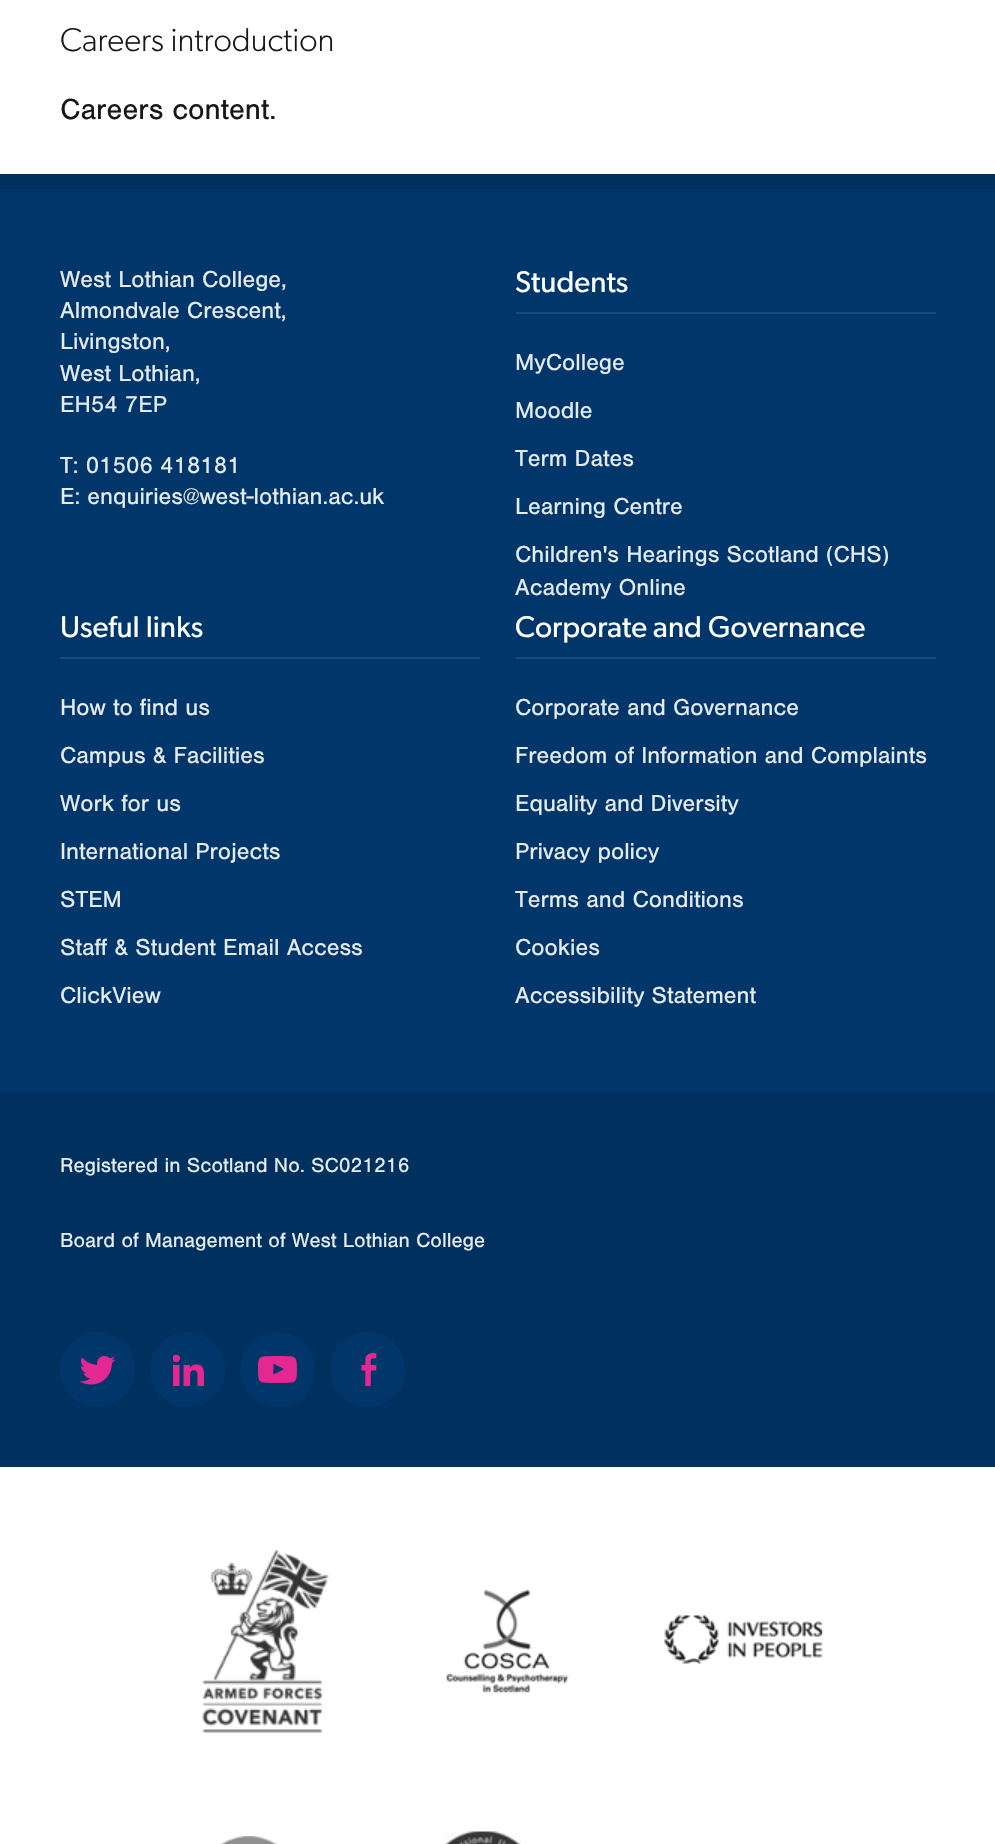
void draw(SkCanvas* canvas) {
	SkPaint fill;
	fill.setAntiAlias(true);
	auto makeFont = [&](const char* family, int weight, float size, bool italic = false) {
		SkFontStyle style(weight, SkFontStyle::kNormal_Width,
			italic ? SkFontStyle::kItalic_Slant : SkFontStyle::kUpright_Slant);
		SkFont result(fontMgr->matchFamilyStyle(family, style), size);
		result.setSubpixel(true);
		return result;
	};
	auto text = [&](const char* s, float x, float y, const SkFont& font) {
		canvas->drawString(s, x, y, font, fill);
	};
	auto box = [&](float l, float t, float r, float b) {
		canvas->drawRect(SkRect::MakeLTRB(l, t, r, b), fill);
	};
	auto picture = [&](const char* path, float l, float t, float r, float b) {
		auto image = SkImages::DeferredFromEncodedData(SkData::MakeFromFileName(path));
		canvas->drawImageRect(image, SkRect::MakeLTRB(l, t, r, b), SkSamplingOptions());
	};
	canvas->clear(0xFFFFFFFF);
	fill.setColor(0xFF00305E);
	box(0, 174, 995, 189);
	fill.setColor(0xFF003669);
	box(0, 189, 995, 1092);
	fill.setColor(0xFF194A77);
	box(516, 312, 936, 314);
	box(60, 657, 480, 659);
	box(516, 657, 936, 659);
	fill.setColor(0xFF00305E);
	box(0, 1092, 995, 1467);
	fill.setColor(0xFF003669);
	canvas->drawCircle(97.5f, 1369.5f, 37.5f, fill);
	picture("image0.png", 80, 1356, 116, 1385);
	canvas->drawCircle(187.5f, 1369.5f, 37.5f, fill);
	picture("image1.png", 173, 1355, 204, 1386);
	canvas->drawCircle(277.5f, 1369.5f, 37.5f, fill);
	picture("image2.png", 258, 1356, 297, 1383);
	canvas->drawCircle(367.5f, 1369.5f, 37.5f, fill);
	picture("image3.png", 361, 1353, 377, 1386);
	picture("image4.png", 202, 1549, 329, 1733);
	picture("image5.png", 445, 1589, 569, 1693);
	picture("image6.png", 664, 1615, 823, 1664);
	picture("image7.png", 220, 1836, 278, 1844);
	picture("image8.png", 445, 1831, 521, 1844);
	auto font1 = makeFont("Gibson", 300, 33);
	fill.setColor(0xFF191717);
	text("Careers introduction", 60, 51, font1);
	auto font2 = makeFont("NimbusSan", 400, 30);
	text("Careers content.", 60, 119, font2);
	auto font3 = makeFont("NimbusSan", 400, 24);
	fill.setColor(0xFFE6EBF0);
	text("West Lothian College,", 60, 287, font3);
	text("Almondvale Crescent,", 60, 318, font3);
	text("Livingston,", 60, 349, font3);
	text("West Lothian,", 60, 381, font3);
	text("EH54 7EP", 60, 412, font3);
	text("T: 01506 418181", 60, 473, font3);
	text("E: enquiries@west-lothian.ac.uk", 60, 504, font3);
	auto font4 = makeFont("Gibson", 400, 30);
	fill.setColor(0xFFFFFFFF);
	text("Students", 515, 292, font4);
	fill.setColor(0xFFE6EBF0);
	text("MyCollege", 515, 370, font3);
	text("Moodle", 515, 418, font3);
	text("Term Dates", 515, 466, font3);
	text("Learning Centre", 515, 514, font3);
	text("Children's Hearings Scotland (CHS)", 515, 562, font3);
	text("Academy Online", 515, 595, font3);
	fill.setColor(0xFFFFFFFF);
	text("Useful links", 60, 637, font4);
	fill.setColor(0xFFE6EBF0);
	text("How to find us", 60, 715, font3);
	text("Campus & Facilities", 60, 763, font3);
	text("Work for us", 60, 811, font3);
	text("International Projects", 60, 859, font3);
	text("STEM", 60, 907, font3);
	text("Staff & Student Email Access", 60, 955, font3);
	text("ClickView", 60, 1003, font3);
	fill.setColor(0xFFFFFFFF);
	text("Corporate and Governance", 515, 637, font4);
	fill.setColor(0xFFE6EBF0);
	text("Corporate and Governance", 515, 715, font3);
	text("Freedom of Information and Complaints", 515, 763, font3);
	text("Equality and Diversity", 515, 811, font3);
	text("Privacy policy", 515, 859, font3);
	text("Terms and Conditions", 515, 907, font3);
	text("Cookies", 515, 955, font3);
	text("Accessibility Statement", 515, 1003, font3);
	auto font5 = makeFont("NimbusSan", 400, 21);
	text("Registered in Scotland No. SC021216", 60, 1172, font5);
	text("Board of Management of West Lothian College", 60, 1247, font5);
}
